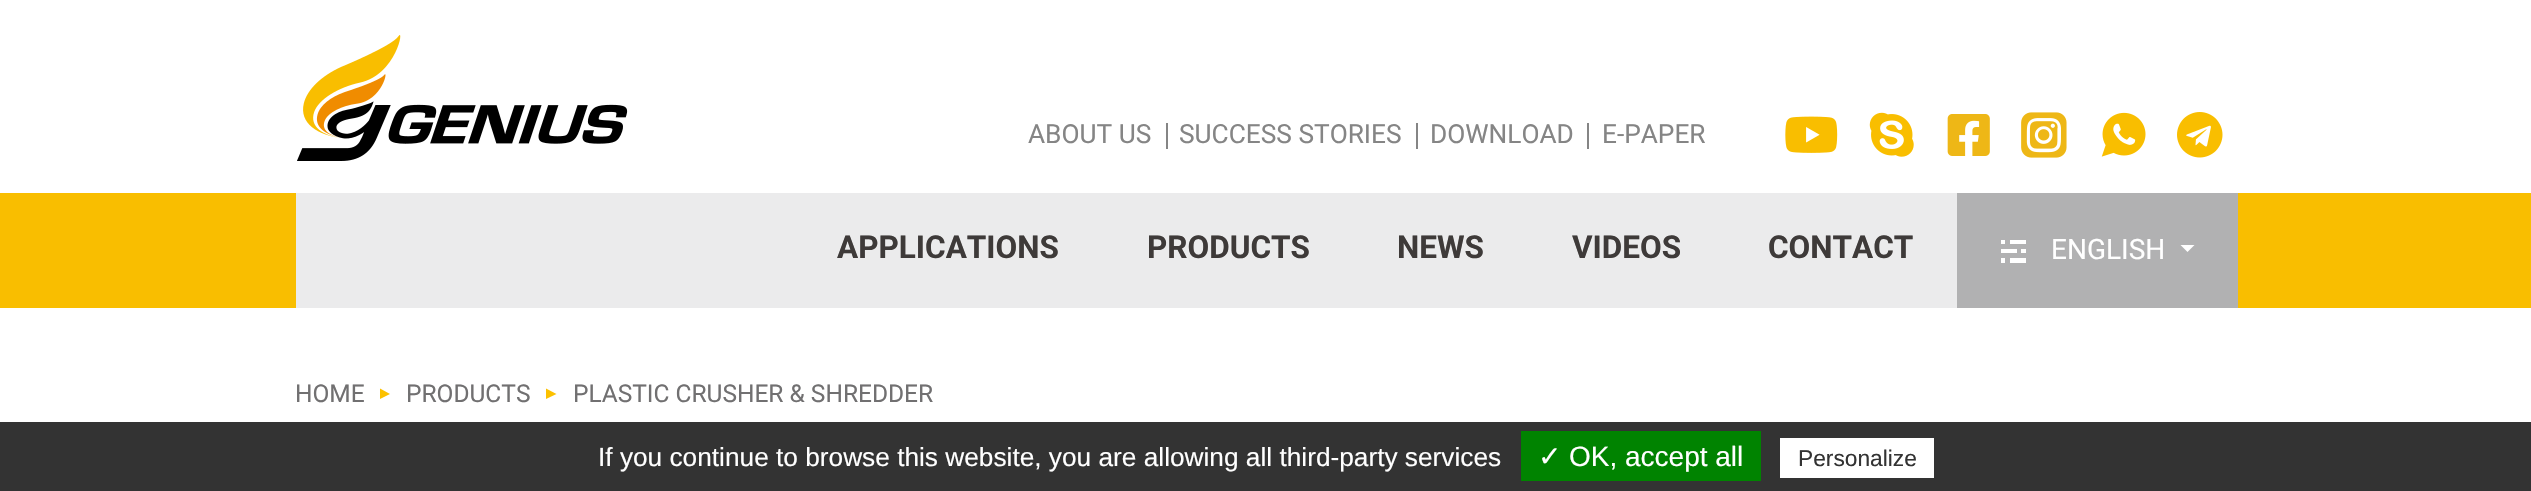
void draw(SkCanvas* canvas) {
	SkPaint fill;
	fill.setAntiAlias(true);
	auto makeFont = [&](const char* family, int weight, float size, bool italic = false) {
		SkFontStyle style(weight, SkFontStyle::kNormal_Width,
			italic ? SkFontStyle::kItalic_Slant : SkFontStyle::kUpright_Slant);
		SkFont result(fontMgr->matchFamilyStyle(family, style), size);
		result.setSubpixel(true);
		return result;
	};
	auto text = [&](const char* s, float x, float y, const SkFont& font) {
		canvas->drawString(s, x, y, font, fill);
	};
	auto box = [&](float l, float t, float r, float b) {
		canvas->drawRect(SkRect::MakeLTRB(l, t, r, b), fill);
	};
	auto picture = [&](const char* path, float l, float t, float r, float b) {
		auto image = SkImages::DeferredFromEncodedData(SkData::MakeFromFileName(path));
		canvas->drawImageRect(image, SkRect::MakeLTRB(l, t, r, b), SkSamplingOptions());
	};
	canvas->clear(0xFFFFFFFF);
	picture("image0.png", 297, 35, 628, 161);
	fill.setColor(0xFF858585);
	box(1166, 123, 1168, 149);
	box(1416, 123, 1418, 149);
	box(1587, 123, 1589, 149);
	picture("image1.png", 1785, 116, 1838, 153);
	picture("image2.png", 1869, 112, 1914, 157);
	picture("image3.png", 1947, 114, 1990, 156);
	picture("image4.png", 2021, 112, 2067, 158);
	picture("image5.png", 2101, 112, 2146, 157);
	picture("image6.png", 2177, 112, 2223, 158);
	fill.setColor(0xFFF9BE00);
	box(0, 193, 2531, 308);
	fill.setColor(0xFFEBEBEC);
	box(296, 193, 1957, 308);
	fill.setColor(0xFFB1B1B2);
	box(1957, 193, 2238, 308);
	picture("image7.png", 2001, 240, 2026, 263);
	fill.setColor(0xFFFFFFFF);
	canvas->drawPath(SkPathBuilder().moveTo(2180.5f, 245).lineTo(2194.5f, 245).lineTo(2187.5f, 252).close().detach(), fill);
	fill.setColor(0xFFFCC100);
	canvas->drawPath(SkPathBuilder().moveTo(380, 399).lineTo(380, 388.5f).lineTo(390, 394).close().detach(), fill);
	canvas->drawPath(SkPathBuilder().moveTo(546, 399).lineTo(546, 388.5f).lineTo(556.5f, 394).close().detach(), fill);
	fill.setColor(0xFF333333);
	box(0, 422, 2531, 491);
	fill.setColor(0xFF008300);
	box(1521, 431, 1761, 481);
	fill.setColor(0xFFFFFFFF);
	box(1780, 438, 1934, 478);
	auto font1 = makeFont("Roboto", 400, 26.25f);
	fill.setColor(0xFF858585);
	text("ABOUT US", 1028, 143, font1);
	text("SUCCESS STORIES", 1179, 143, font1);
	text("DOWNLOAD", 1430, 143, font1);
	text("E-PAPER", 1602, 143, font1);
	auto font2 = makeFont("Roboto", 700, 31.5f);
	fill.setColor(0xFF3E3A39);
	text("APPLICATIONS", 837, 258, font2);
	text("PRODUCTS", 1147, 258, font2);
	text("NEWS", 1397, 258, font2);
	text("VIDEOS", 1572, 258, font2);
	text("CONTACT", 1768, 258, font2);
	auto font3 = makeFont("Roboto", 400, 28);
	fill.setColor(0xFFFFFFFF);
	text("ENGLISH", 2051, 259, font3);
	auto font4 = makeFont("Roboto", 400, 24.5f);
	fill.setColor(0xFF717071);
	text("HOME", 295, 402, font4);
	text("PRODUCTS", 406, 402, font4);
	text("PLASTIC CRUSHER & SHREDDER", 573, 402, font4);
	auto font5 = makeFont("Liberation Sans", 400, 26.25f);
	fill.setColor(0xFFFFFFFF);
	text("If you continue to browse this website, you are allowing all third-party services", 598, 466, font5);
	auto font6 = makeFont("DejaVu Sans", 400, 28);
	text("✓", 1538, 466, font6);
	auto font7 = makeFont("Liberation Sans", 400, 28);
	text("OK, accept all", 1569, 466, font7);
	auto font8 = makeFont("Liberation Sans", 400, 22.75f);
	fill.setColor(0xFF333333);
	text("Personalize", 1798, 466, font8);
}
